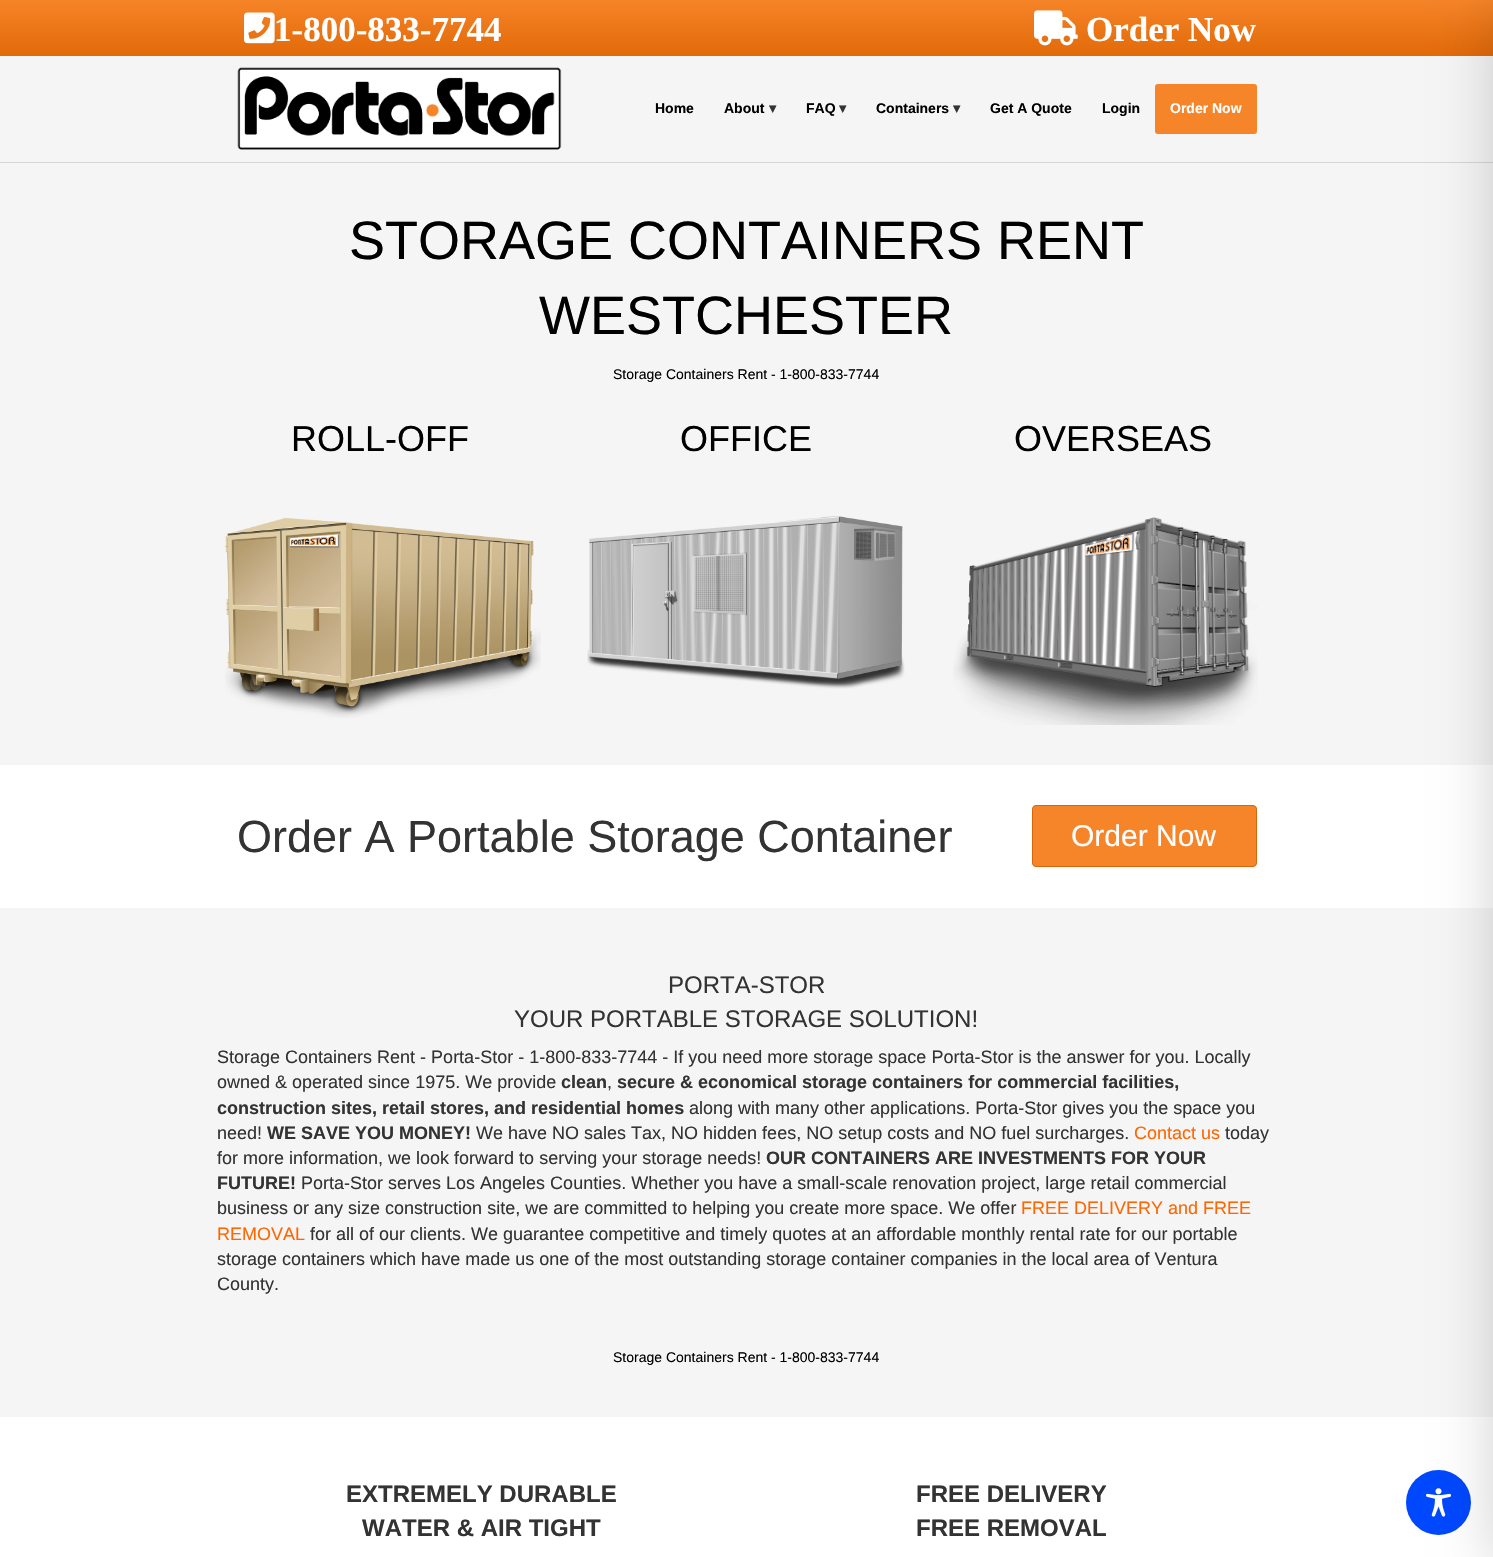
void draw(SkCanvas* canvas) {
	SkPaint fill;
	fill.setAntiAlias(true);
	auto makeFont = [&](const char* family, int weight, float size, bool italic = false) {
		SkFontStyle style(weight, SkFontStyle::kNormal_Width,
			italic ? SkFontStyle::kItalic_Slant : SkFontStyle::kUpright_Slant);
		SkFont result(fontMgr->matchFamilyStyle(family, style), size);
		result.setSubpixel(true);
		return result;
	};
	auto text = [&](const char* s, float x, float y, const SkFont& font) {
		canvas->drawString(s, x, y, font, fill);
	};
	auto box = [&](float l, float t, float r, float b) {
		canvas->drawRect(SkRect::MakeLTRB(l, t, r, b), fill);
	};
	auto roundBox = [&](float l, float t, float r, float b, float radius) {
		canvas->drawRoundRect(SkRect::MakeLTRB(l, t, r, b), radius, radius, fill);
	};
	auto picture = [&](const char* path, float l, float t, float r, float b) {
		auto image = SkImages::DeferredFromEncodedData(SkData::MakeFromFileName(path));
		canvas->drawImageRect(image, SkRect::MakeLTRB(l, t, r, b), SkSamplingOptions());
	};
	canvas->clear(0xFFFFFFFF);
	{
		const SkColor colors[] = {0xFFF68428, 0xFFE26A09};
		const float stops[] = {0, 1};
		const SkPoint ends[] = {{747, 0}, {747, 55}};
		fill.setShader(SkGradientShader::MakeLinear(ends, colors, stops, 2, SkTileMode::kClamp));
		fill.setAlpha(255);
	}
	box(0, 0, 1493, 55);
	fill.setShader(nullptr);
	fill.setColor(0xFFE26A09);
	box(0, 55, 1493, 56);
	picture("image0.png", 244, 12, 275, 44);
	picture("image1.png", 1034, 10, 1078, 46);
	fill.setColor(0xFFF5F5F5);
	box(0, 56, 1493, 162);
	fill.setColor(0xFFD5D5D5);
	box(0, 162, 1493, 163);
	picture("image2.png", 237, 67, 562, 150);
	fill.setColor(0xFFF68428);
	roundBox(1155, 84, 1257, 134, 3);
	fill.setColor(0xFFF5F5F5);
	box(0, 163, 1493, 765);
	picture("image3.png", 225, 517, 541, 718);
	picture("image4.png", 587, 515, 905, 689);
	picture("image5.png", 953, 517, 1258, 725);
	fill.setColor(0xFFF68428);
	canvas->drawRoundRect(SkRect::MakeLTRB(1032.5f, 805.5f, 1256.5f, 866.5f), 3.5f, 3.5f, fill);
	fill.setStyle(SkPaint::kStroke_Style);
	fill.setStrokeWidth(1);
	fill.setColor(0xFFD86509);
	canvas->drawRoundRect(SkRect::MakeLTRB(1032.5f, 805.5f, 1256.5f, 866.5f), 3.5f, 3.5f, fill);
	fill.setStyle(SkPaint::kFill_Style);
	fill.setColor(0xFFF5F5F5);
	box(0, 908, 1493, 1417);
	fill.setColor(0xFF0048FE);
	canvas->drawCircle(1438.5f, 1502.5f, 32.5f, fill);
	picture("image6.png", 1426, 1488, 1451, 1517);
	fill.setColor(0x33000000);
	fill.setMaskFilter(SkMaskFilter::MakeBlur(kNormal_SkBlurStyle, 30));
	canvas->drawRect(SkRect::MakeLTRB(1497, 10, 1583, 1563), fill);
	fill.setMaskFilter(nullptr);
	auto font1 = makeFont("Liberation Serif", 700, 35);
	fill.setColor(0xFFFFFFFF);
	text("1-800-833-7744", 274, 41, font1);
	text("Order Now", 1086, 41, font1);
	auto font2 = makeFont("Liberation Sans", 700, 14);
	fill.setColor(0xFF000000);
	text("Home", 655, 113, font2);
	text("About", 724, 113, font2);
	auto font3 = makeFont("DejaVu Sans", 700, 14);
	fill.setColor(0xFF333333);
	text("▾", 769, 113, font3);
	fill.setColor(0xFF000000);
	text("FAQ", 806, 113, font2);
	fill.setColor(0xFF333333);
	text("▾", 839, 113, font3);
	fill.setColor(0xFF000000);
	text("Containers", 876, 113, font2);
	fill.setColor(0xFF333333);
	text("▾", 953, 113, font3);
	fill.setColor(0xFF000000);
	text("Get A Quote", 990, 113, font2);
	text("Login", 1102, 113, font2);
	fill.setColor(0xFFFFFFFF);
	text("Order Now", 1170, 113, font2);
	auto font4 = makeFont("Liberation Sans", 400, 54);
	fill.setColor(0xFF000000);
	text("STORAGE CONTAINERS RENT", 349, 259, font4);
	text("WESTCHESTER", 539, 334, font4);
	auto font5 = makeFont("Liberation Sans", 400, 14);
	text("Storage Containers Rent - 1-800-833-7744", 613, 379, font5);
	auto font6 = makeFont("Liberation Sans", 400, 36);
	text("ROLL-OFF", 291, 451, font6);
	text("OFFICE", 680, 451, font6);
	text("OVERSEAS", 1014, 451, font6);
	auto font7 = makeFont("Liberation Sans", 400, 45);
	fill.setColor(0xFF333333);
	text("Order A Portable Storage Container", 237, 852, font7);
	auto font8 = makeFont("Liberation Sans", 400, 30);
	fill.setColor(0xFFFFFFFF);
	text("Order Now", 1071, 846, font8);
	auto font9 = makeFont("Liberation Sans", 400, 24);
	fill.setColor(0xFF333333);
	text("PORTA-STOR", 668, 993, font9);
	text("YOUR PORTABLE STORAGE SOLUTION!", 514, 1027, font9);
	auto font10 = makeFont("Liberation Sans", 400, 18);
	text("Storage Containers Rent - Porta-Stor - 1-800-833-7744 - If you need more storage space Porta-Stor is the answer for you. Locally", 217, 1063, font10);
	text("owned & operated since 1975. We provide", 217, 1088, font10);
	auto font11 = makeFont("Liberation Sans", 700, 18);
	text("clean", 561, 1088, font11);
	text(",", 607, 1088, font10);
	text("secure & economical storage containers for commercial facilities,", 617, 1088, font11);
	text("construction sites, retail stores, and residential homes", 217, 1114, font11);
	text("along with many other applications. Porta-Stor gives you the space you", 689, 1114, font10);
	text("need!", 217, 1139, font10);
	text("WE SAVE YOU MONEY!", 267, 1139, font11);
	text("We have NO sales Tax, NO hidden fees, NO setup costs and NO fuel surcharges.", 476, 1139, font10);
	fill.setColor(0xFFFF6600);
	text("Contact us", 1134, 1139, font10);
	fill.setColor(0xFF333333);
	text("today", 1225, 1139, font10);
	text("for more information, we look forward to serving your storage needs!", 217, 1164, font10);
	text("OUR CONTAINERS ARE INVESTMENTS FOR YOUR", 766, 1164, font11);
	text("FUTURE!", 217, 1189, font11);
	text("Porta-Stor serves Los Angeles Counties. Whether you have a small-scale renovation project, large retail commercial", 301, 1189, font10);
	text("business or any size construction site, we are committed to helping you create more space. We offer", 217, 1214, font10);
	fill.setColor(0xFFFF6600);
	text("FREE DELIVERY and FREE", 1021, 1214, font10);
	text("REMOVAL", 217, 1240, font10);
	fill.setColor(0xFF333333);
	text("for all of our clients. We guarantee competitive and timely quotes at an affordable monthly rental rate for our portable", 310, 1240, font10);
	text("storage containers which have made us one of the most outstanding storage container companies in the local area of Ventura", 217, 1265, font10);
	text("County.", 217, 1290, font10);
	fill.setColor(0xFF000000);
	text("Storage Containers Rent - 1-800-833-7744", 613, 1362, font5);
	auto font12 = makeFont("Liberation Sans", 700, 24);
	fill.setColor(0xFF333333);
	text("EXTREMELY DURABLE", 346, 1502, font12);
	text("WATER & AIR TIGHT", 362, 1536, font12);
	text("FREE DELIVERY", 916, 1502, font12);
	text("FREE REMOVAL", 916, 1536, font12);
}
